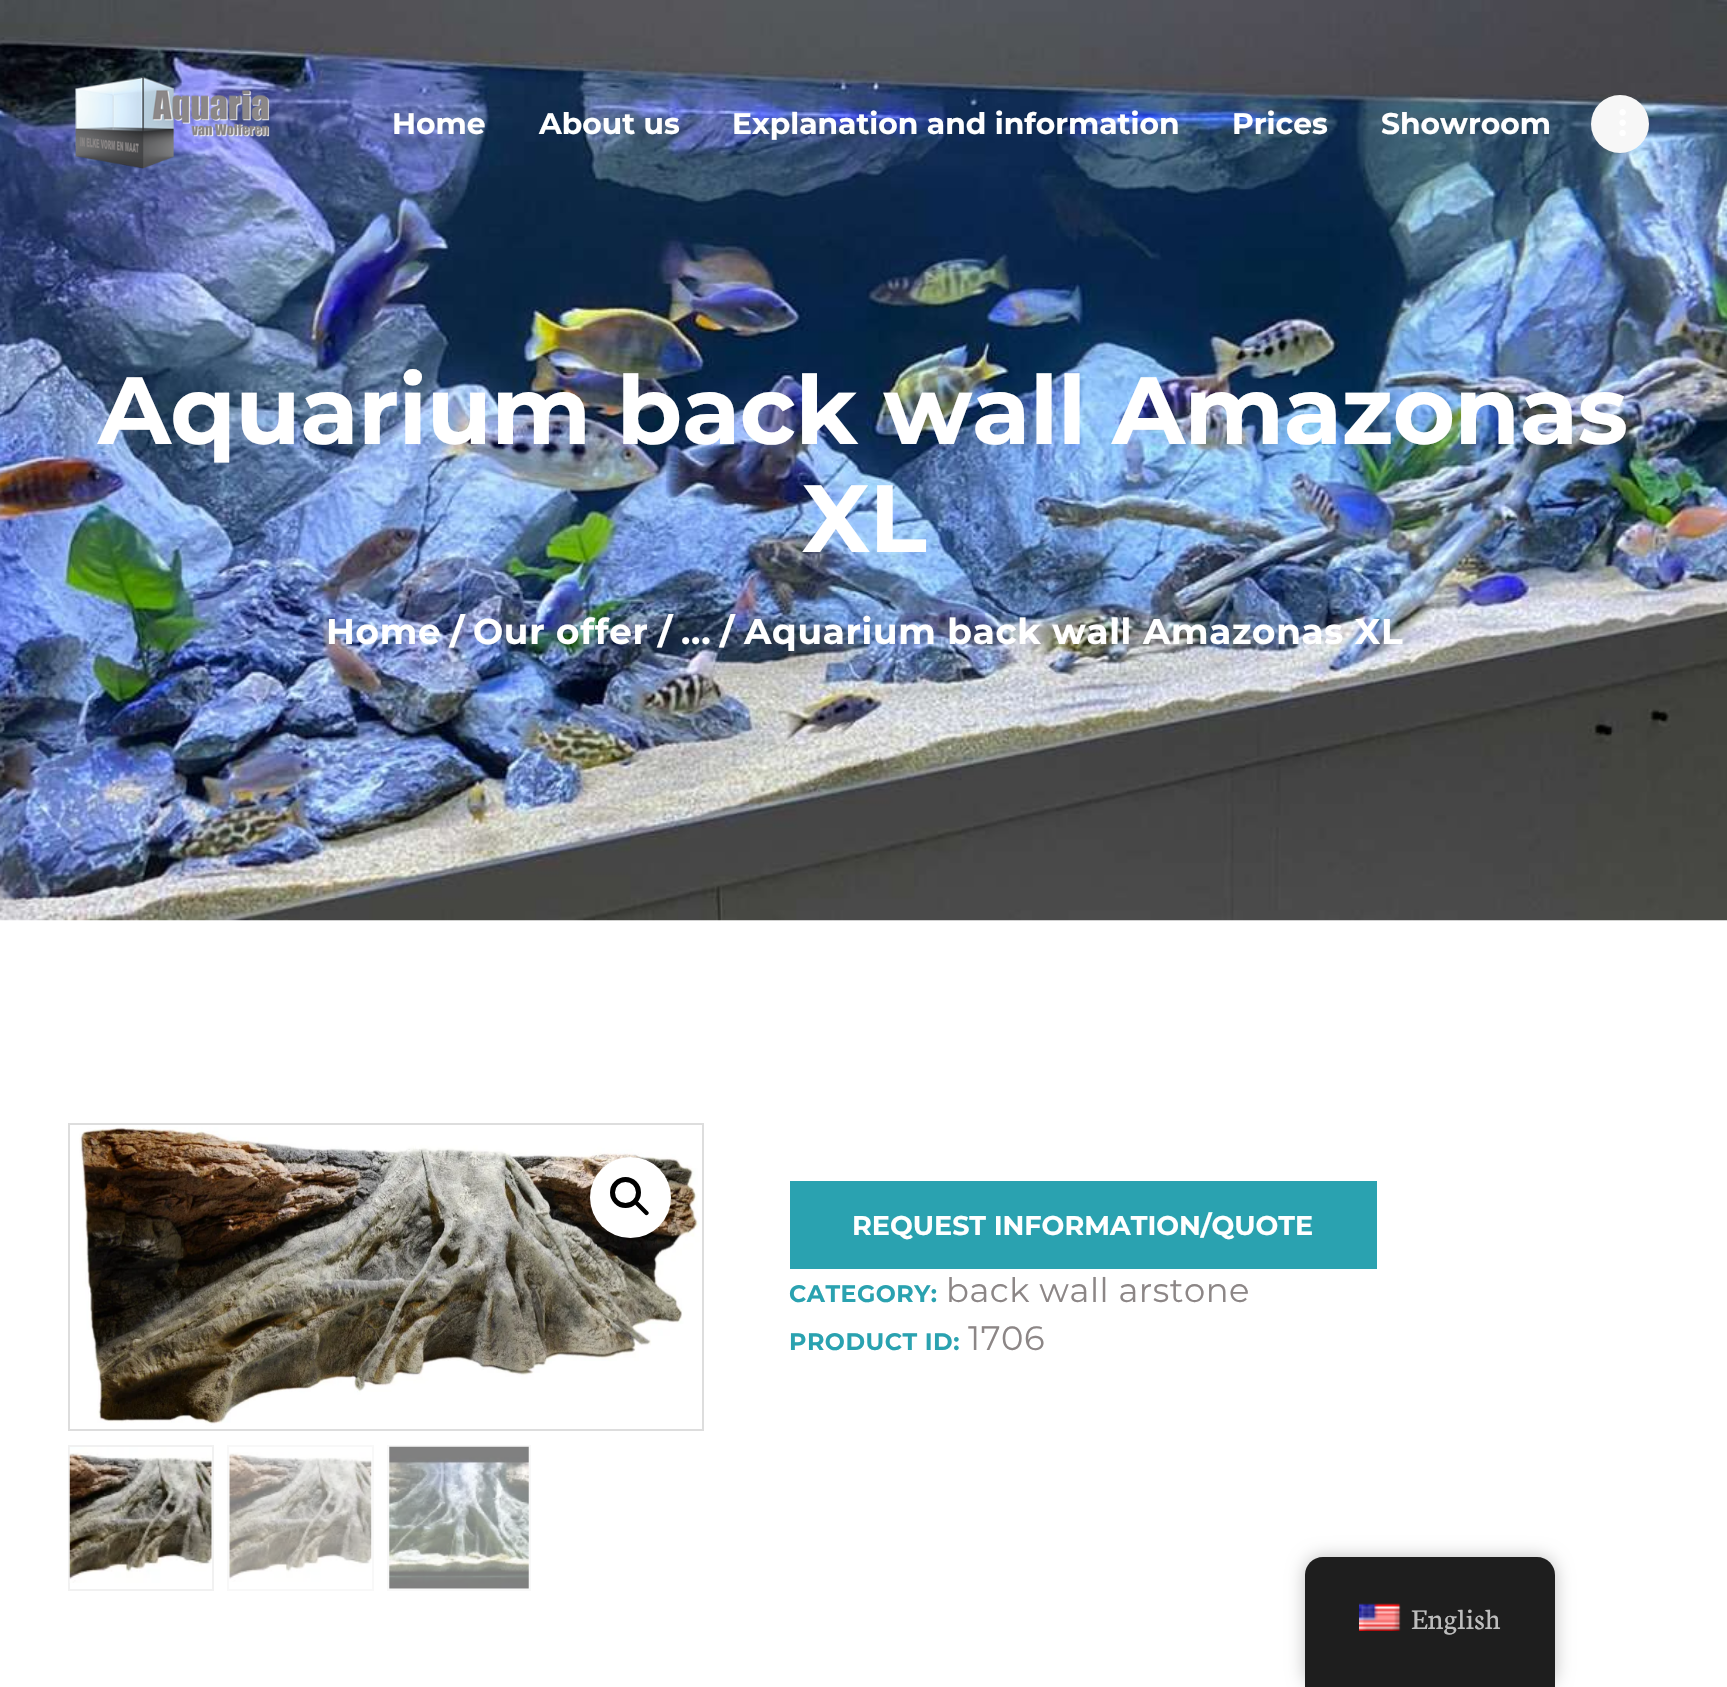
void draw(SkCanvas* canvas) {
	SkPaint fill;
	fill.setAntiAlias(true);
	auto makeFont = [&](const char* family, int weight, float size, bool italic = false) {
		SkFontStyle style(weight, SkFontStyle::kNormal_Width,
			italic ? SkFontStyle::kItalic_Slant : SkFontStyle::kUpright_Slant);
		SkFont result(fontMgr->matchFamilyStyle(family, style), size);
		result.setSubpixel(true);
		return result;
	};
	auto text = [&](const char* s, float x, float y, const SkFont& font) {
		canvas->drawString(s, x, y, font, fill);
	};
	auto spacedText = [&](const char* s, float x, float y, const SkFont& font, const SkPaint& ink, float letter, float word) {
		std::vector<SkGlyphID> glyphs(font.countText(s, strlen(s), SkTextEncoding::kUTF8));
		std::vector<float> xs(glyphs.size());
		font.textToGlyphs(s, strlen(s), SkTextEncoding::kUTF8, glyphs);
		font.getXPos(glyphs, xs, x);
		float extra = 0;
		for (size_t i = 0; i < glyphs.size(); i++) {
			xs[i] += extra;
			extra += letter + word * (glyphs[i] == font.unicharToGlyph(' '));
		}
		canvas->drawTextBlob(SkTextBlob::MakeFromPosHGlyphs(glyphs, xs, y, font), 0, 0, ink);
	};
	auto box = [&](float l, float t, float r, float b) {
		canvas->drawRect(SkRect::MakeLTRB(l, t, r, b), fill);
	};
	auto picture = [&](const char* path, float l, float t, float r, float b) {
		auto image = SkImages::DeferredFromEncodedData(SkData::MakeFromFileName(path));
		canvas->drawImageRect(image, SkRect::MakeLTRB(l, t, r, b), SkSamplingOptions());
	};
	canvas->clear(0xFFFFFFFF);
	picture("image0.png", 0, 0, 1727, 921);
	picture("image1.png", 75, 76, 270, 169);
	fill.setColor(0xFFF7F7F7);
	canvas->drawCircle(1620, 124, 29, fill);
	picture("image2.png", 1619, 109, 1626, 136);
	fill.setStyle(SkPaint::kStroke_Style);
	fill.setStrokeWidth(2);
	fill.setColor(0xFFDDDDDD);
	canvas->drawRect(SkRect::MakeLTRB(69, 1124, 703, 1430), fill);
	picture("image3.png", 79, 1127, 700, 1426);
	fill.setStyle(SkPaint::kFill_Style);
	fill.setColor(0xFFFFFFFF);
	canvas->drawCircle(630.5f, 1197.5f, 40.5f, fill);
	fill.setStyle(SkPaint::kStroke_Style);
	fill.setStrokeWidth(5);
	fill.setColor(0xFF000000);
	canvas->drawCircle(625.5f, 1192.5f, 13, fill);
	fill.setStyle(SkPaint::kFill_Style);
	canvas->drawPath(SkPathBuilder().moveTo(635.5f, 1202).cubicTo(636, 1201, 637.5f, 1201, 638.5f, 1202).lineTo(648, 1211.5f).cubicTo(649, 1212.5f, 649, 1213.5f, 648, 1214.5f).cubicTo(647, 1215.5f, 645.5f, 1215.5f, 645, 1214.5f).lineTo(635.5f, 1205).cubicTo(634.5f, 1204, 634.5f, 1202.5f, 635.5f, 1202).close().detach(), fill);
	fill.setStyle(SkPaint::kStroke_Style);
	fill.setStrokeWidth(2);
	fill.setColor(0xFFF1F1F1);
	canvas->drawRect(SkRect::MakeLTRB(69, 1446, 213, 1590), fill);
	picture("image4.png", 69, 1447, 212, 1583);
	fill.setColor(0xFFF8F8F8);
	canvas->drawRect(SkRect::MakeLTRB(228, 1446, 373, 1590), fill);
	picture("image5.png", 229, 1452, 372, 1582);
	canvas->drawRect(SkRect::MakeLTRB(388, 1446, 530, 1590), fill);
	picture("image6.png", 389, 1446, 529, 1589);
	fill.setStyle(SkPaint::kFill_Style);
	fill.setColor(0xFF2AA2B0);
	box(790, 1181, 1377, 1269);
	fill.setColor(0x40000000);
	fill.setMaskFilter(SkMaskFilter::MakeBlur(kNormal_SkBlurStyle, 9));
	canvas->drawRoundRect(SkRect::MakeLTRB(1305, 1557, 1555, 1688), 18, 18, fill);
	fill.setMaskFilter(nullptr);
	fill.setColor(0xFF1E1E1E);
	canvas->drawPath(SkPathBuilder().moveTo(1323, 1557).lineTo(1537, 1557).cubicTo(1547, 1557, 1555, 1565, 1555, 1575).lineTo(1555, 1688).lineTo(1305, 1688).lineTo(1305, 1575).cubicTo(1305, 1565, 1313, 1557, 1323, 1557).close().detach(), fill);
	picture("image7.png", 1359, 1603, 1401, 1631);
	auto font1 = makeFont("Montserrat", 700, 29.75f);
	fill.setColor(0xFFFFFFFF);
	text("Home", 392, 134, font1);
	text("About us", 539, 134, font1);
	text("Explanation and information", 732, 134, font1);
	text("Prices", 1232, 134, font1);
	text("Showroom", 1381, 134, font1);
	auto font2 = makeFont("Montserrat", 700, 95.25f);
	spacedText("Aquarium back wall Amazonas", 98, 444, font2, fill, -0.7f, 0);
	spacedText("XL", 802, 552, font2, fill, -0.7f, 0);
	auto font3 = makeFont("Montserrat", 700, 35.75f);
	spacedText("Home", 326, 644, font3, fill, 0.7f, 0);
	spacedText("/", 450, 644, font3, fill, 0.7f, 0);
	spacedText("Our offer", 473, 644, font3, fill, 0.7f, 0);
	spacedText("/", 658, 644, font3, fill, 0.7f, 0);
	spacedText("...", 681, 644, font3, fill, 0.7f, 0);
	spacedText("/", 720, 644, font3, fill, 0.7f, 0);
	spacedText("Aquarium back wall Amazonas XL", 744, 644, font3, fill, 0.7f, 0);
	auto font4 = makeFont("Montserrat", 700, 27);
	text("REQUEST INFORMATION/QUOTE", 852, 1235, font4);
	auto font5 = makeFont("Montserrat", 700, 23.75f);
	fill.setColor(0xFF2AA2B0);
	spacedText("CATEGORY:", 789, 1302, font5, fill, 0.5f, 0);
	auto font6 = makeFont("Montserrat", 400, 33.75f);
	fill.setColor(0xFF8C8686);
	spacedText("back wall arstone", 946, 1302, font6, fill, 0.5f, 0);
	fill.setColor(0xFF2AA2B0);
	spacedText("PRODUCT ID:", 789, 1350, font5, fill, 0.5f, 0);
	fill.setColor(0xFF8C8686);
	spacedText("1706", 968, 1350, font6, fill, 0.5f, 0);
	auto font7 = makeFont("Neuton", 400, 30.5f);
	fill.setColor(0xFFBDBDBD);
	spacedText("English", 1411, 1629, font7, fill, 0.5f, 0);
}
